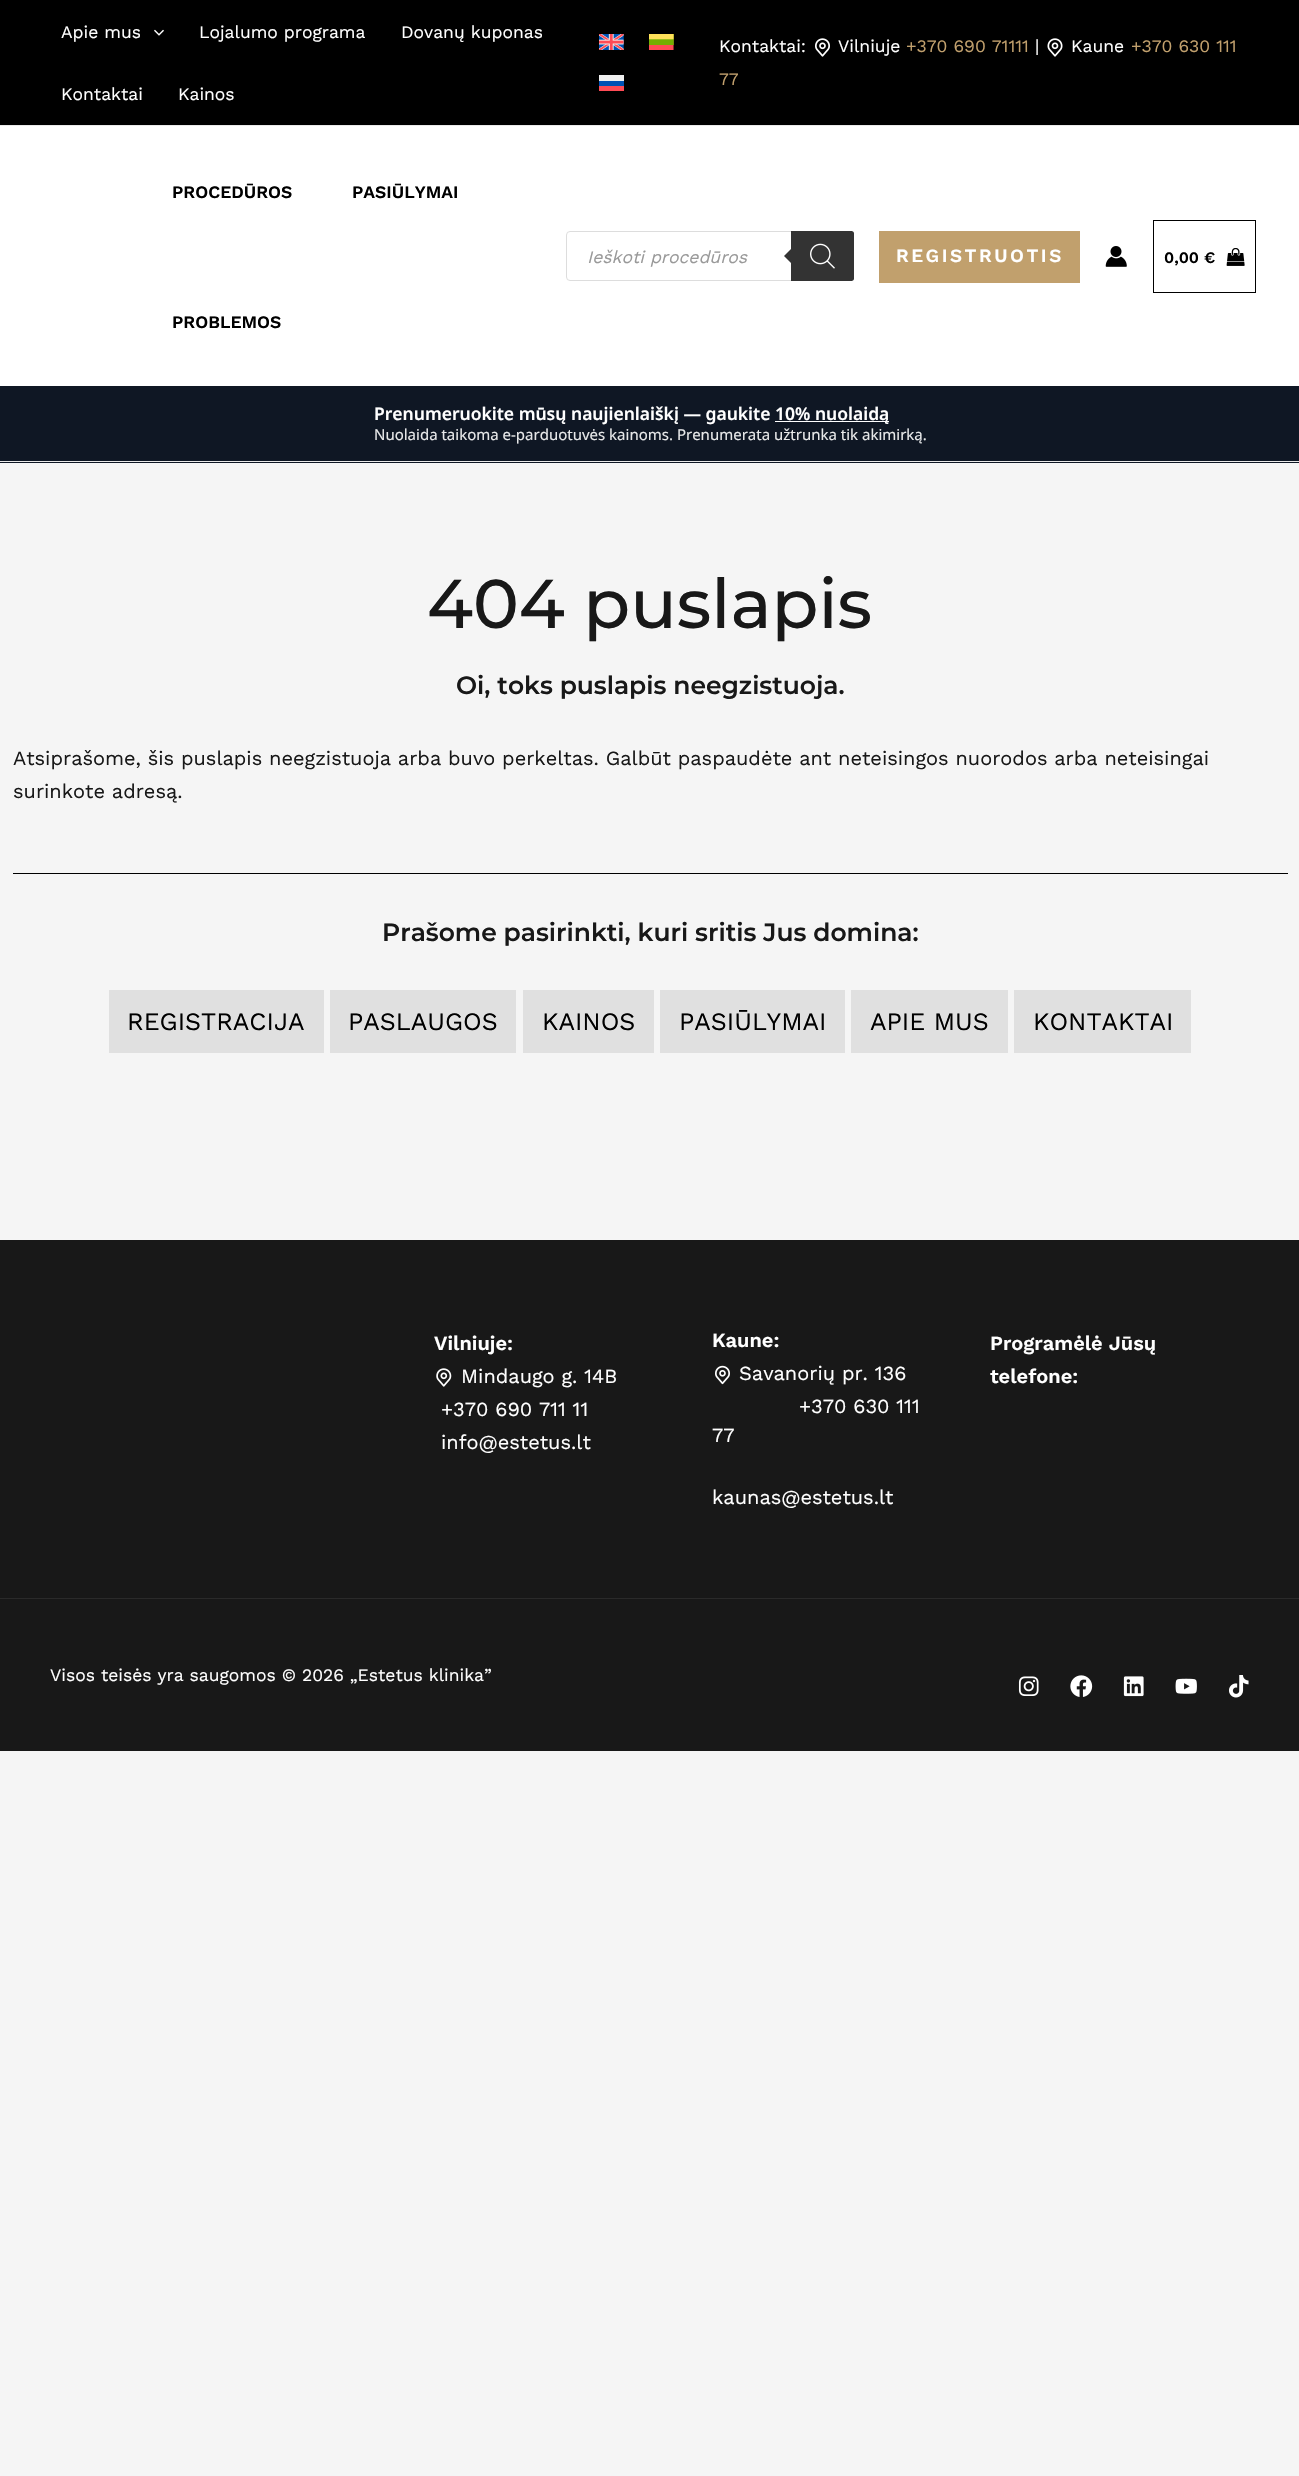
void draw(SkCanvas* canvas) {
	SkPaint fill;
	fill.setAntiAlias(true);
	auto makeFont = [&](const char* family, int weight, float size, bool italic = false) {
		SkFontStyle style(weight, SkFontStyle::kNormal_Width,
			italic ? SkFontStyle::kItalic_Slant : SkFontStyle::kUpright_Slant);
		SkFont result(fontMgr->matchFamilyStyle(family, style), size);
		result.setSubpixel(true);
		return result;
	};
	auto text = [&](const char* s, float x, float y, const SkFont& font) {
		canvas->drawString(s, x, y, font, fill);
	};
	auto spacedText = [&](const char* s, float x, float y, const SkFont& font, const SkPaint& ink, float letter, float word) {
		std::vector<SkGlyphID> glyphs(font.countText(s, strlen(s), SkTextEncoding::kUTF8));
		std::vector<float> xs(glyphs.size());
		font.textToGlyphs(s, strlen(s), SkTextEncoding::kUTF8, glyphs);
		font.getXPos(glyphs, xs, x);
		float extra = 0;
		for (size_t i = 0; i < glyphs.size(); i++) {
			xs[i] += extra;
			extra += letter + word * (glyphs[i] == font.unicharToGlyph(' '));
		}
		canvas->drawTextBlob(SkTextBlob::MakeFromPosHGlyphs(glyphs, xs, y, font), 0, 0, ink);
	};
	auto box = [&](float l, float t, float r, float b) {
		canvas->drawRect(SkRect::MakeLTRB(l, t, r, b), fill);
	};
	auto picture = [&](const char* path, float l, float t, float r, float b) {
		auto image = SkImages::DeferredFromEncodedData(SkData::MakeFromFileName(path));
		canvas->drawImageRect(image, SkRect::MakeLTRB(l, t, r, b), SkSamplingOptions());
	};
	canvas->clear(0xFFF5F5F5);
	fill.setColor(0xFF000000);
	box(0, 0, 1299, 125);
	fill.setColor(0xFFEAEAEA);
	box(0, 125, 1299, 126);
	picture("image0.png", 154, 29, 164, 36);
	picture("image1.png", 599, 34, 624, 50);
	picture("image2.png", 649, 34, 674, 50);
	fill.setColor(0xFF0052B4);
	box(599, 81, 624, 86);
	fill.setColor(0xFFFF4B55);
	box(599, 86, 624, 91);
	fill.setColor(0xFFF0F0F0);
	box(599, 75, 624, 81);
	picture("image3.png", 815, 38, 830, 57);
	picture("image4.png", 1047, 38, 1063, 57);
	fill.setColor(0xFFFFFFFF);
	box(0, 126, 1299, 386);
	fill.setStyle(SkPaint::kStroke_Style);
	fill.setStrokeWidth(1);
	fill.setColor(0xFFDDDDDD);
	canvas->drawRoundRect(SkRect::MakeLTRB(566.5f, 231.5f, 853.5f, 280.5f), 3.5f, 3.5f, fill);
	fill.setStyle(SkPaint::kFill_Style);
	fill.setColor(0xFF333333);
	canvas->drawPath(SkPathBuilder().moveTo(791, 231).lineTo(851.5f, 231).cubicTo(853, 231, 854, 232, 854, 233.5f).lineTo(854, 278.5f).cubicTo(854, 280, 853, 281, 851.5f, 281).lineTo(791, 281).close().detach(), fill);
	canvas->drawPath(SkPathBuilder().moveTo(794, 246).lineTo(794, 266).lineTo(784, 256).close().detach(), fill);
	picture("image5.png", 810, 243, 835, 269);
	fill.setColor(0xFFC1A06D);
	box(879, 231, 1080, 283);
	picture("image6.png", 1105, 246, 1127, 267);
	fill.setStyle(SkPaint::kStroke_Style);
	fill.setColor(0xFF000000);
	canvas->drawRect(SkRect::MakeLTRB(1153.5f, 220.5f, 1255.5f, 292.5f), fill);
	picture("image7.png", 1226, 248, 1245, 266);
	fill.setStyle(SkPaint::kFill_Style);
	fill.setColor(0xFF0F1724);
	box(0, 386, 1299, 463);
	fill.setColor(0xFFEAEAEA);
	box(0, 461, 1299, 462);
	fill.setColor(0xFFFFFFFF);
	box(775, 421, 889, 422);
	fill.setColor(0xFF000000);
	box(13, 873, 1288, 874);
	fill.setColor(0xFFE0E0E0);
	box(109, 990, 324, 1053);
	box(330, 990, 516, 1053);
	box(523, 990, 654, 1053);
	box(660, 990, 845, 1053);
	box(851, 990, 1008, 1053);
	box(1014, 990, 1191, 1053);
	fill.setColor(0xFF181818);
	box(0, 1240, 1299, 1598);
	picture("image8.png", 436, 1368, 452, 1387);
	picture("image9.png", 715, 1365, 730, 1385);
	box(0, 1599, 1299, 1751);
	fill.setColor(0xFF2A2A2A);
	box(0, 1598, 1299, 1599);
	picture("image10.png", 1018, 1676, 1039, 1696);
	picture("image11.png", 1070, 1675, 1093, 1697);
	picture("image12.png", 1123, 1676, 1144, 1697);
	picture("image13.png", 1175, 1678, 1197, 1694);
	picture("image14.png", 1229, 1675, 1249, 1698);
	auto font1 = makeFont("Work Sans", 400, 17.5f);
	fill.setColor(0xFFFFFFFF);
	text("Apie mus", 61, 38, font1);
	text("Lojalumo programa", 199, 38, font1);
	text("Dovanų kuponas", 401, 38, font1);
	text("Kontaktai", 61, 100, font1);
	text("Kainos", 178, 100, font1);
	text("Kontaktai:", 719, 52, font1);
	text("Vilniuje", 838, 52, font1);
	fill.setColor(0xFFC1A06D);
	text("+370 690 71111", 906, 52, font1);
	fill.setColor(0xFFFFFFFF);
	text("|", 1035, 52, font1);
	text("Kaune", 1071, 52, font1);
	fill.setColor(0xFFC1A06D);
	text("+370 630 111", 1131, 52, font1);
	text("77", 719, 85, font1);
	auto font2 = makeFont("Work Sans", 600, 17.5f);
	fill.setColor(0xFF000000);
	text("PROCEDŪROS", 172, 198, font2);
	text("PASIŪLYMAI", 352, 198, font2);
	text("PROBLEMOS", 172, 328, font2);
	auto font3 = makeFont("Work Sans", 400, 17.5f, true);
	fill.setColor(0xFF999999);
	text("Ieškoti procedūros", 587, 263, font3);
	auto font4 = makeFont("Work Sans", 600, 18.75f);
	fill.setColor(0xFFFFFFFF);
	spacedText("REGISTRUOTIS", 896, 262, font4, fill, 2.5f, 0);
	auto font5 = makeFont("Work Sans", 600, 16);
	fill.setColor(0xFF000000);
	text("0,00 €", 1164, 263, font5);
	auto font6 = makeFont("Noto Sans", 600, 17.5f);
	fill.setColor(0xFFFFFFFF);
	text("Prenumeruokite mūsų naujienlaiškį — gaukite", 374, 420, font6);
	text("10% nuolaidą", 775, 420, font6);
	auto font7 = makeFont("Noto Sans", 400, 15);
	fill.setColor(0xFFE7E8E9);
	text("Nuolaida taikoma e-parduotuvės kainoms. Prenumerata užtrunka tik akimirką.", 374, 440, font7);
	auto font8 = makeFont("Montserrat", 500, 68.75f);
	fill.setColor(0xFF181818);
	text("404 puslapis", 427, 628, font8);
	auto font9 = makeFont("Montserrat", 600, 25);
	text("Oi, toks puslapis neegzistuoja.", 456, 694, font9);
	auto font10 = makeFont("Work Sans", 400, 20);
	text("Atsiprašome, šis puslapis neegzistuoja arba buvo perkeltas. Galbūt paspaudėte ant neteisingos nuorodos arba neteisingai", 13, 765, font10);
	text("surinkote adresą.", 13, 798, font10);
	text("Prašome pasirinkti, kuri sritis Jus domina:", 382, 941, font9);
	auto font11 = makeFont("Work Sans", 400, 25);
	fill.setColor(0xFF000000);
	text("REGISTRACIJA", 127, 1030, font11);
	text("PASLAUGOS", 348, 1030, font11);
	text("KAINOS", 542, 1030, font11);
	text("PASIŪLYMAI", 679, 1030, font11);
	text("APIE MUS", 870, 1030, font11);
	text("KONTAKTAI", 1033, 1030, font11);
	auto font12 = makeFont("Work Sans", 600, 20);
	fill.setColor(0xFFFFFFFF);
	text("Vilniuje:", 434, 1350, font12);
	text("Mindaugo g. 14B", 461, 1383, font10);
	text("+370 690 711 11", 441, 1416, font10);
	text("info@estetus.lt", 441, 1449, font10);
	text("Kaune:", 712, 1347, font12);
	text("Savanorių pr. 136", 739, 1380, font10);
	text("+370 630 111", 799, 1413, font10);
	text("77", 712, 1442, font10);
	text("kaunas@estetus.lt", 712, 1504, font10);
	text("Programėlė Jūsų", 990, 1350, font12);
	text("telefone:", 990, 1383, font12);
	text("Visos teisės yra saugomos © 2026 „Estetus klinika”", 50, 1681, font1);
}
